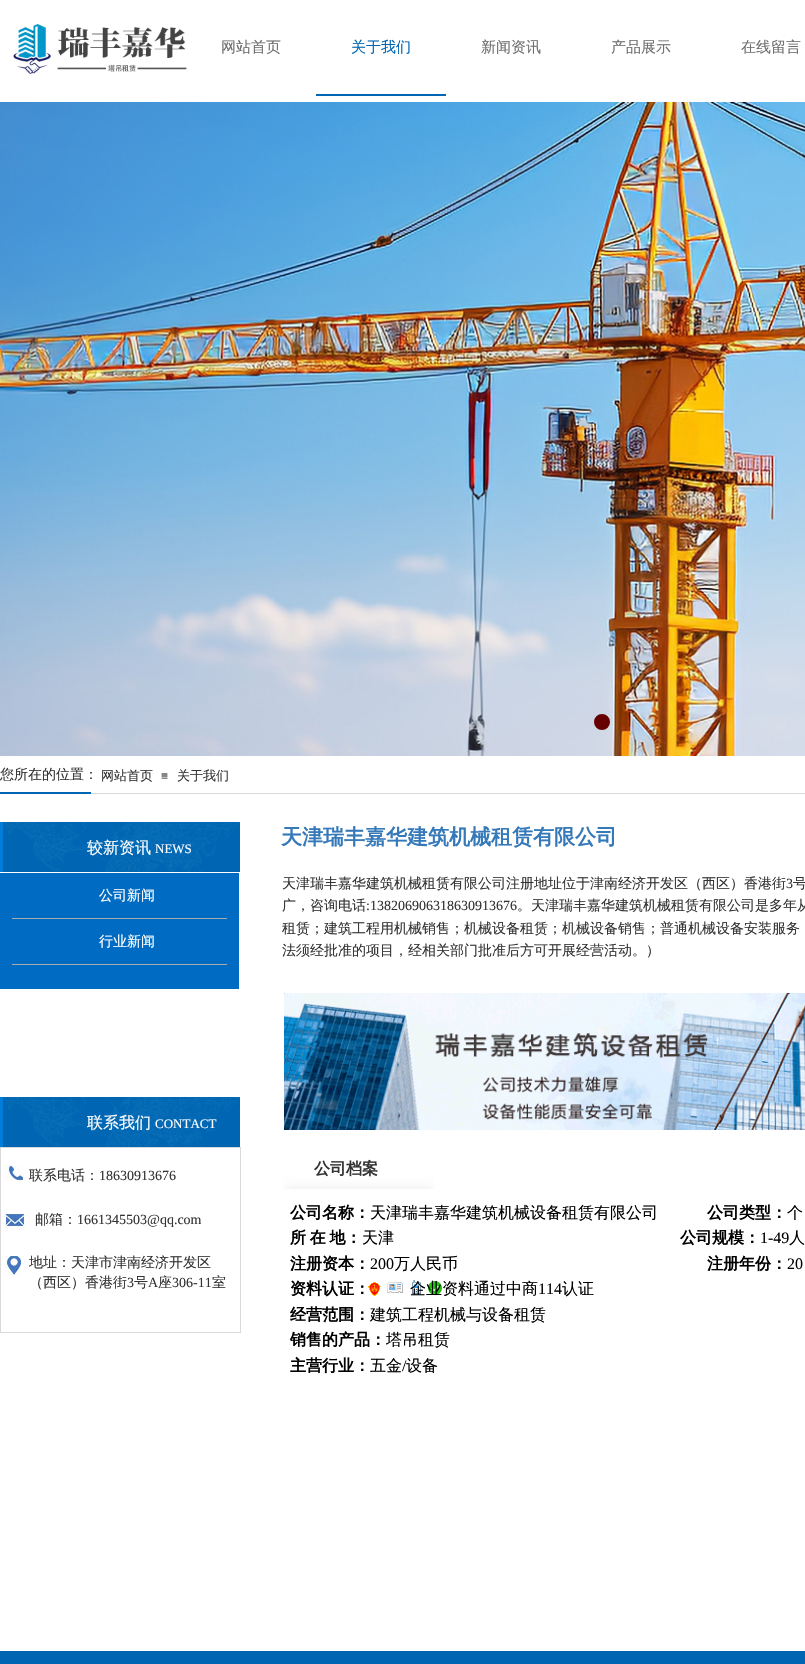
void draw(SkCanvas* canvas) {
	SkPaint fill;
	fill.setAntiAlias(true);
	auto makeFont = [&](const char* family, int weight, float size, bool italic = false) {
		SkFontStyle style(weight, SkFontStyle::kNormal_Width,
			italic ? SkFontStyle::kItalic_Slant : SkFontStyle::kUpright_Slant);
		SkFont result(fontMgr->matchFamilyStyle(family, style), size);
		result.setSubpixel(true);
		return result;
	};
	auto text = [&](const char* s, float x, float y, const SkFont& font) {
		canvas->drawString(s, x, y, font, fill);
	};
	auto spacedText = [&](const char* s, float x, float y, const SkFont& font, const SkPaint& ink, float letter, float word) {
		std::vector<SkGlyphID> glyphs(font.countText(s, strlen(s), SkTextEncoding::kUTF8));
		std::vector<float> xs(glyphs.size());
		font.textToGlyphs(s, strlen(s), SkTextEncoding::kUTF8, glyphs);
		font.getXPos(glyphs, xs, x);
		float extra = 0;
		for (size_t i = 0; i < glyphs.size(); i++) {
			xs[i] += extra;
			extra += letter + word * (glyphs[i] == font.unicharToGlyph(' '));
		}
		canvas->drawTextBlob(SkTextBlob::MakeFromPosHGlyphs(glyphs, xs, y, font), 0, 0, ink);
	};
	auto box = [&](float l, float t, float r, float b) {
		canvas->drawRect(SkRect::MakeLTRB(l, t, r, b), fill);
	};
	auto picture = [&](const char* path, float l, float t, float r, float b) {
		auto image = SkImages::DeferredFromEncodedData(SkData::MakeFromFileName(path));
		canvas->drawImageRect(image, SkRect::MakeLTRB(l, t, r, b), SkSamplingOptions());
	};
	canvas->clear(0xFFFFFFFF);
	picture("image0.png", 13, 24, 187, 74);
	fill.setColor(0xFF0066B3);
	box(316, 94, 446, 96);
	picture("image1.png", 0, 102, 805, 756);
	fill.setColor(0xFF660000);
	canvas->drawCircle(602, 722, 7, fill);
	fill.setStyle(SkPaint::kStroke_Style);
	fill.setStrokeWidth(2);
	canvas->drawCircle(602, 722, 7, fill);
	fill.setStyle(SkPaint::kFill_Style);
	fill.setColor(0xFF0066B3);
	box(0, 792, 91, 794);
	fill.setColor(0xFFD9D9D9);
	box(91, 793, 805, 794);
	picture("image2.png", 0, 822, 240, 872);
	fill.setColor(0xFF006BC3);
	box(0, 873, 239, 989);
	fill.setColor(0xFFAAAAAA);
	box(12, 918, 227, 919);
	box(12, 964, 227, 965);
	picture("image2.png", 0, 1097, 240, 1147);
	picture("image3.png", 284, 993, 805, 1130);
	fill.setStyle(SkPaint::kStroke_Style);
	fill.setStrokeWidth(1);
	fill.setColor(0xFFD9D9D9);
	canvas->drawRect(SkRect::MakeLTRB(0.5f, 1147.5f, 240.5f, 1332.5f), fill);
	canvas->save();
	canvas->clipRect(SkRect::MakeLTRB(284, 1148, 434, 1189));
	fill.setStyle(SkPaint::kFill_Style);
	fill.setColor(0xFFDADADA);
	fill.setMaskFilter(SkMaskFilter::MakeBlur(kNormal_SkBlurStyle, 7.5f));
	canvas->drawRect(SkRect::MakeLTRB(284, 1193, 434, 1223), fill);
	fill.setMaskFilter(nullptr);
	canvas->restore();
	picture("image4.png", 5, 1165, 25, 1181);
	picture("image5.png", 5, 1214, 25, 1230);
	picture("image6.png", 5, 1256, 21, 1276);
	picture("image7.png", 368, 1282, 381, 1296);
	picture("image8.png", 387, 1282, 403, 1293);
	picture("image9.png", 412, 1280, 421, 1294);
	picture("image10.png", 428, 1281, 442, 1295);
	fill.setColor(0xFF0066B3);
	box(0, 1651, 805, 1664);
	auto font1 = makeFont("WenQuanYi Zen Hei", 500, 15);
	fill.setColor(0xFF6E6E6E);
	text("网站首页", 221, 52, font1);
	fill.setColor(0xFF0066B3);
	text("关于我们", 351, 52, font1);
	fill.setColor(0xFF6E6E6E);
	text("新闻资讯", 481, 52, font1);
	text("产品展示", 611, 52, font1);
	text("在线留言", 741, 52, font1);
	auto font2 = makeFont("WenQuanYi Zen Hei", 500, 14);
	fill.setColor(0xFF333333);
	text("您所在的位置：", 0, 779, font2);
	auto font3 = makeFont("WenQuanYi Zen Hei", 500, 13);
	text("网站首页", 101, 780, font3);
	auto font4 = makeFont("Liberation Sans", 400, 12);
	text("≡", 161, 780, font4);
	text("关于我们", 177, 780, font3);
	auto font5 = makeFont("WenQuanYi Zen Hei", 700, 21);
	fill.setColor(0xFF3579B9);
	text("天津瑞丰嘉华建筑机械租赁有限公司", 281, 844, font5);
	auto font6 = makeFont("WenQuanYi Zen Hei", 500, 16);
	fill.setColor(0xFFFFFFFF);
	text("较新资讯", 87, 853, font6);
	auto font7 = makeFont("Liberation Serif", 400, 13);
	text("NEWS", 155, 853, font7);
	text("公司新闻", 99, 900, font2);
	text("行业新闻", 99, 946, font2);
	fill.setColor(0xFF333333);
	text("天津瑞丰嘉华建筑机械租赁有限公司注册地址位于津南经济开发区（西区）香港街", 282, 888, font2);
	auto font8 = makeFont("Liberation Serif", 400, 14);
	text("3", 786, 888, font8);
	text("号", 793, 888, font2);
	text("广，咨询电话", 282, 910, font2);
	text(":138206906318630913676", 366, 910, font8);
	text("。天津瑞丰嘉华建筑机械租赁有限公司是多年从", 517, 910, font2);
	text("租赁；建筑工程用机械销售；机械设备租赁；机械设备销售；普通机械设备安装服务", 282, 933, font2);
	text("法须经批准的项目，经相关部门批准后方可开展经营活动。）", 282, 955, font2);
	fill.setColor(0xFFFFFFFF);
	text("联系我们", 87, 1128, font6);
	text("CONTACT", 155, 1128, font7);
	auto font9 = makeFont("WenQuanYi Zen Hei", 700, 16);
	fill.setColor(0xFF333333);
	text("公司档案", 314, 1174, font9);
	text("联系电话：", 29, 1180, font2);
	text("18630913676", 99, 1180, font8);
	text("邮箱：", 35, 1224, font2);
	text("1661345503@qq.com", 77, 1224, font8);
	fill.setColor(0xFF000000);
	text("公司名称：", 290, 1218, font9);
	text("天津瑞丰嘉华建筑机械设备租赁有限公司", 370, 1218, font6);
	text("公司类型：", 707, 1218, font9);
	text("个", 787, 1218, font6);
	spacedText("所 在 地：", 290, 1243, font9, fill, 0, -1);
	text("天津", 362, 1243, font6);
	text("公司规模：", 680, 1243, font9);
	auto font10 = makeFont("Liberation Serif", 400, 16);
	text("1-49", 760, 1243, font10);
	text("人", 789, 1243, font6);
	text("注册资本：", 290, 1269, font9);
	text("200", 370, 1269, font10);
	text("万人民币", 394, 1269, font6);
	text("注册年份：", 707, 1269, font9);
	text("20", 787, 1269, font10);
	text("资料认证：", 290, 1294, font9);
	text("企业资料通过中商", 410, 1294, font6);
	text("114", 538, 1294, font10);
	text("认证", 562, 1294, font6);
	text("经营范围：", 290, 1320, font9);
	text("建筑工程机械与设备租赁", 370, 1320, font6);
	text("销售的产品：", 290, 1345, font9);
	text("塔吊租赁", 386, 1345, font6);
	text("主营行业：", 290, 1371, font9);
	text("五金", 370, 1371, font6);
	text("/", 402, 1371, font10);
	text("设备", 406, 1371, font6);
	fill.setColor(0xFF333333);
	text("地址：天津市津南经济开发区", 29, 1267, font2);
	text("（西区）香港街", 29, 1287, font2);
	text("3", 127, 1287, font8);
	text("号", 134, 1287, font2);
	text("A", 148, 1287, font8);
	text("座", 158, 1287, font2);
	text("306-11", 172, 1287, font8);
	text("室", 212, 1287, font2);
}
